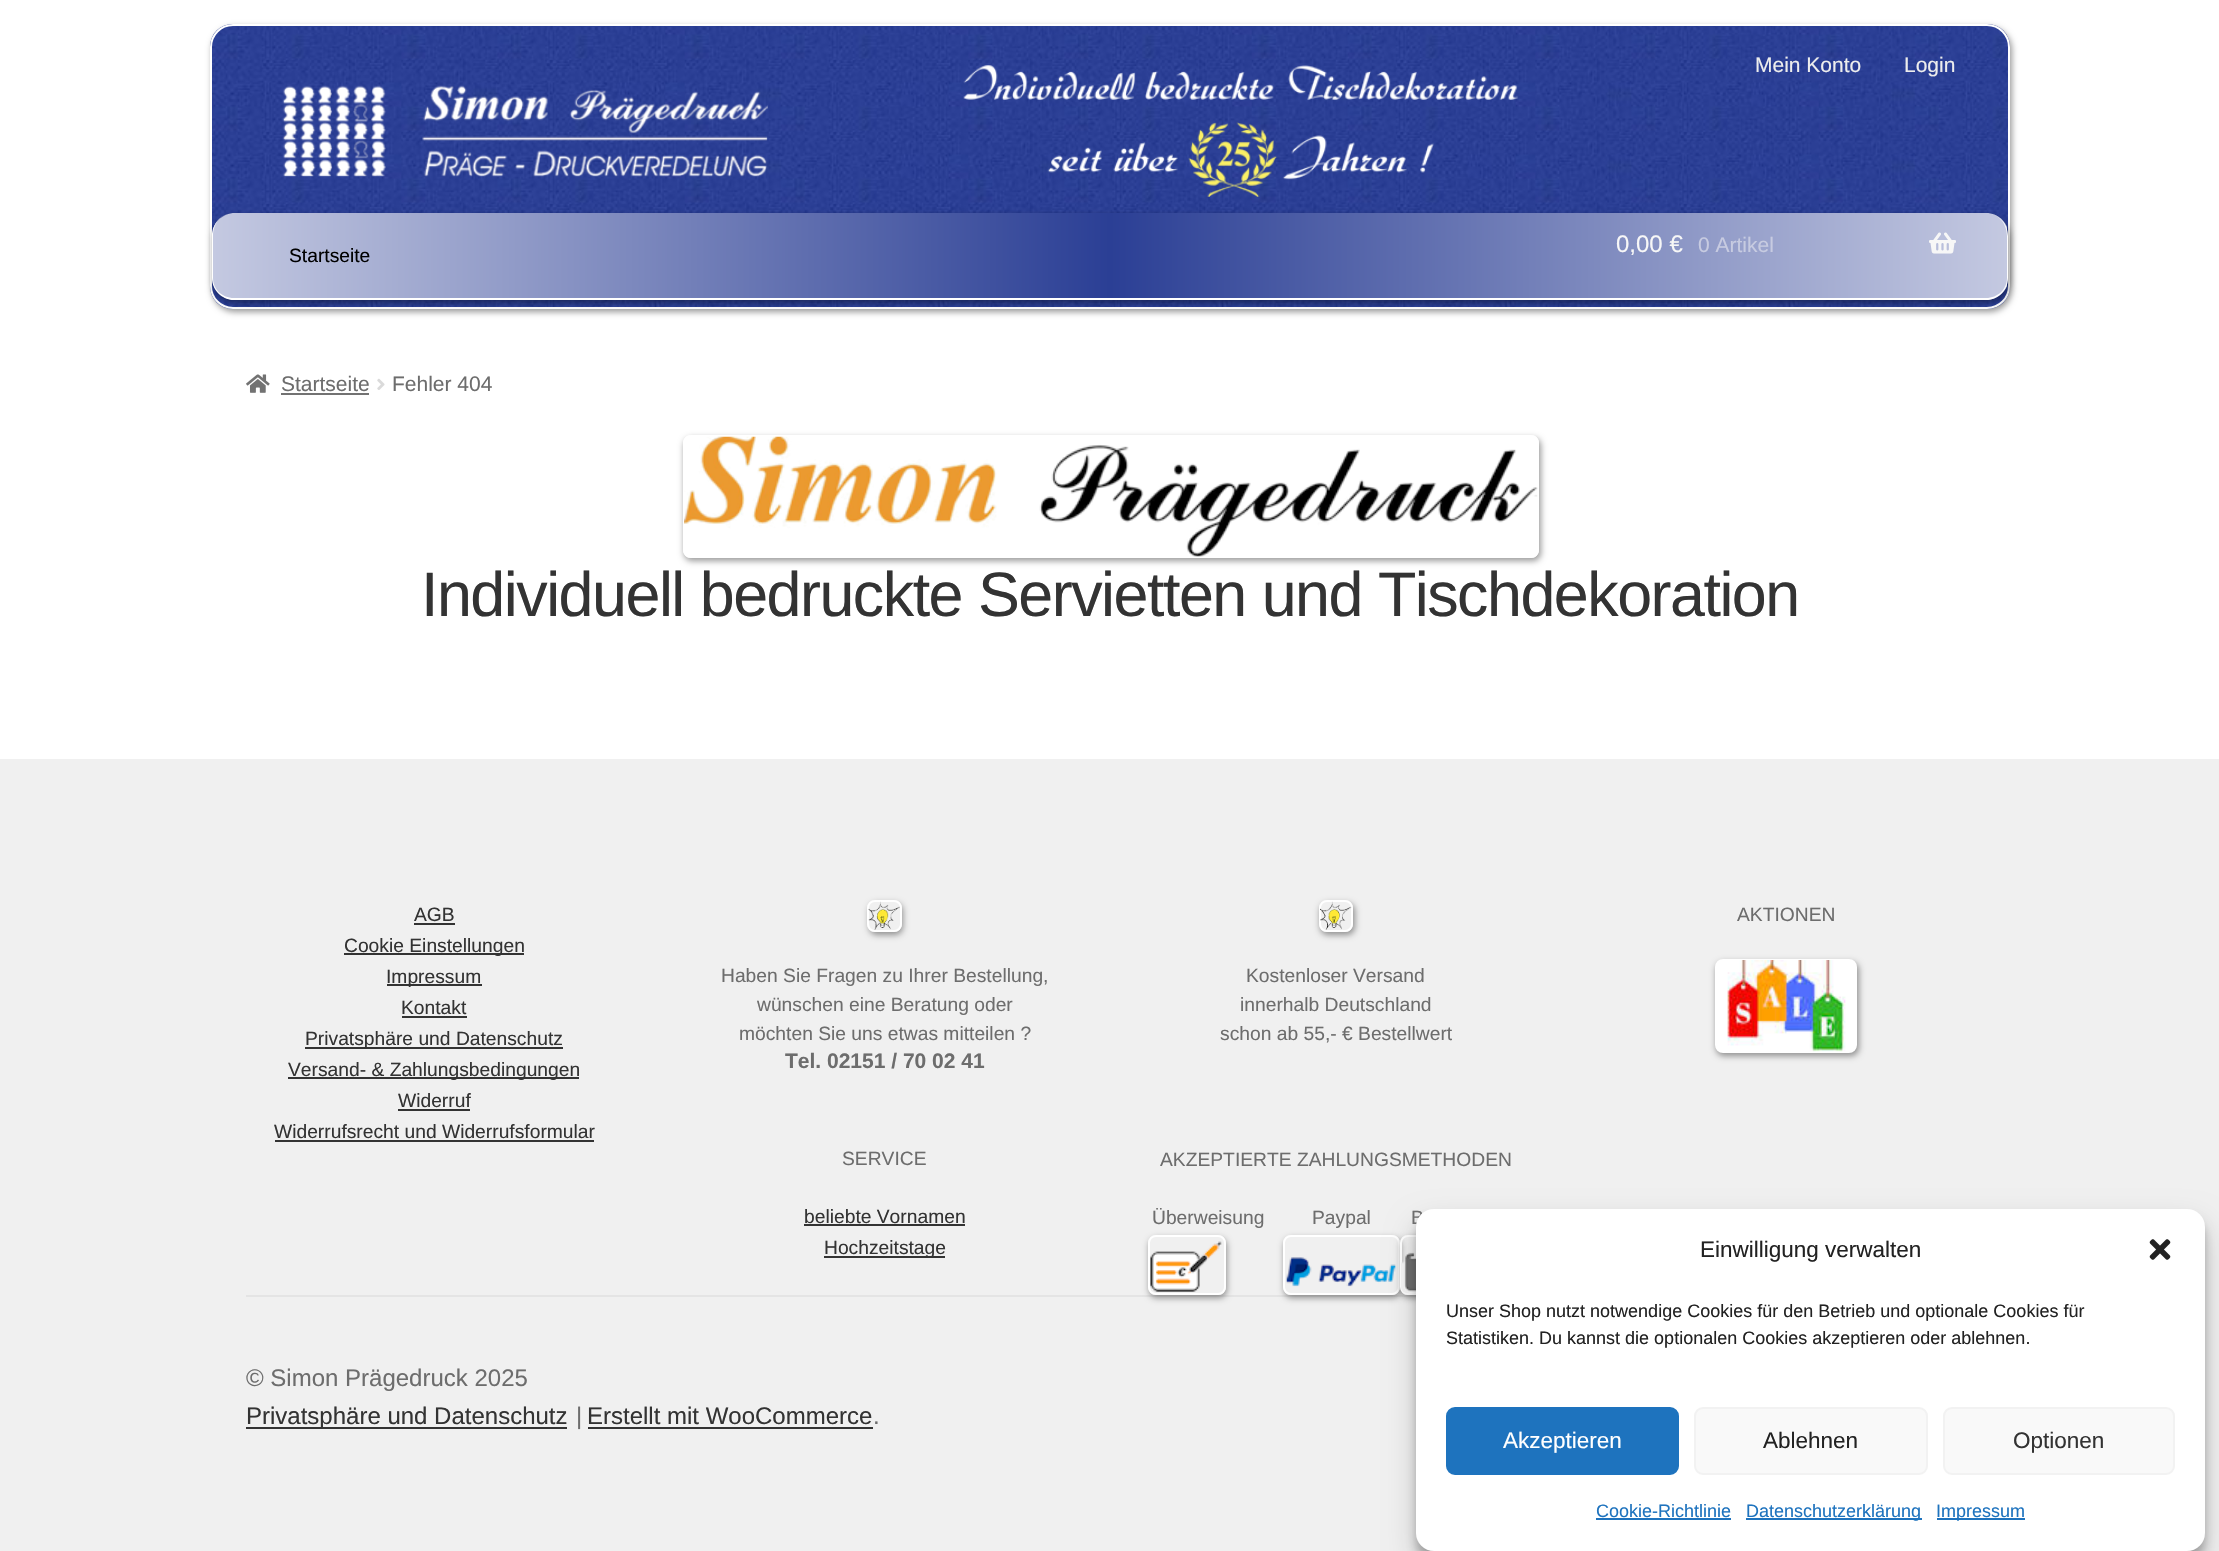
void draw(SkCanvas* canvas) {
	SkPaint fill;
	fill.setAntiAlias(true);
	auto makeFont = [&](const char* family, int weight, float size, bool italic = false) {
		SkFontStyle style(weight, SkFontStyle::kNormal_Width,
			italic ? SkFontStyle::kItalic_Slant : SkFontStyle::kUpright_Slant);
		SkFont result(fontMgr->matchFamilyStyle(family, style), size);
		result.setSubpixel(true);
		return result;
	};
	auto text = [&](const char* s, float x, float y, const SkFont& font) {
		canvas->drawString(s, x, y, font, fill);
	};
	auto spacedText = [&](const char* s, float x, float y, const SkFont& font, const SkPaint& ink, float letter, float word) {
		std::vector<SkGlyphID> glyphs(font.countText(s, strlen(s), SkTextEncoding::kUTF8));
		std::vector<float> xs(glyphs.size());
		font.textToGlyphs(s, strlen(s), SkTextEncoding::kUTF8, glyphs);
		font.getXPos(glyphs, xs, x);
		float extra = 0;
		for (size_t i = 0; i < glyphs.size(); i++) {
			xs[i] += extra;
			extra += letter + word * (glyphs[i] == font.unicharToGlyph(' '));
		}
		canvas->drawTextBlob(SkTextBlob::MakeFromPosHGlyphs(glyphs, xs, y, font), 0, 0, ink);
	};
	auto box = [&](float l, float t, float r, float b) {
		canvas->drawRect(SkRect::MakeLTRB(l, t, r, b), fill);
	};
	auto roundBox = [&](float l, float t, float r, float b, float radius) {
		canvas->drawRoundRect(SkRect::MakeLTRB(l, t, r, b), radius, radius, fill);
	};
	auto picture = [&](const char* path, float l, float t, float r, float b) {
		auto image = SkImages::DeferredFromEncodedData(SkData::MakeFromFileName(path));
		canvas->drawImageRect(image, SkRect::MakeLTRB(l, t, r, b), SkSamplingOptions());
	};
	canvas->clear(0xFFFFFFFF);
	fill.setColor(0x66000000);
	fill.setMaskFilter(SkMaskFilter::MakeBlur(kNormal_SkBlurStyle, 3));
	canvas->drawRoundRect(SkRect::MakeLTRB(212, 27, 2012, 312), 23, 23, fill);
	fill.setMaskFilter(nullptr);
	picture("image0.png", 210, 24, 2010, 309);
	fill.setStyle(SkPaint::kStroke_Style);
	fill.setStrokeWidth(2);
	fill.setColor(0xFFFFFFFF);
	canvas->drawRoundRect(SkRect::MakeLTRB(211, 25, 2009, 308), 22, 22, fill);
	picture("image1.png", 282, 85, 768, 177);
	picture("image2.png", 963, 65, 1518, 197);
	fill.setStyle(SkPaint::kFill_Style);
	fill.setColor(0x66000000);
	fill.setMaskFilter(SkMaskFilter::MakeBlur(kNormal_SkBlurStyle, 3));
	canvas->drawRoundRect(SkRect::MakeLTRB(213, 216, 2010, 303), 23, 23, fill);
	fill.setMaskFilter(nullptr);
	canvas->save();
	canvas->clipPath(SkPathBuilder().moveTo(235, 213).lineTo(1986, 213).cubicTo(1998.5f, 213, 2009, 223.5f, 2009, 236).lineTo(2009, 277).cubicTo(2009, 289.5f, 1998.5f, 300, 1986, 300).lineTo(235, 300).cubicTo(222.5f, 300, 212, 289.5f, 212, 277).lineTo(212, 236).cubicTo(212, 223.5f, 222.5f, 213, 235, 213).close().detach(), true);
	{
		const SkColor colors[] = {0xFFC4C9E1, 0xFF2B3F95, 0xFFC4C9E1};
		const float stops[] = {0, 0.5f, 1};
		const SkPoint ends[] = {{2007, 256}, {213, 256}};
		fill.setShader(SkGradientShader::MakeLinear(ends, colors, stops, 3, SkTileMode::kClamp));
		fill.setAlpha(255);
	}
	box(213, 213, 2007, 300);
	canvas->restore();
	fill.setShader(nullptr);
	fill.setColor(0xFFFFFFFF);
	canvas->drawPath(SkPathBuilder(SkPathFillType::kEvenOdd).moveTo(234, 213).lineTo(1986, 213).cubicTo(1998, 213, 2008, 223, 2008, 236).lineTo(2008, 278).cubicTo(2008, 290, 1998, 300, 1986, 300).lineTo(234, 300).cubicTo(222, 300, 212, 290, 212, 278).lineTo(212, 236).cubicTo(212, 223, 222, 213, 234, 213).close().moveTo(234, 213).lineTo(1986, 213).cubicTo(1998, 213, 2007, 223, 2007, 236).lineTo(2007, 278).cubicTo(2007, 289, 1998, 298, 1986, 298).lineTo(234, 298).cubicTo(222, 298, 213, 289, 213, 278).lineTo(213, 236).cubicTo(213, 223, 222, 213, 234, 213).close().detach(), fill);
	picture("image3.png", 1929, 232, 1956, 254);
	picture("image4.png", 246, 374, 270, 393);
	fill.setColor(0xFF727272);
	box(281, 393, 369, 395);
	picture("image5.png", 377, 378, 385, 390);
	canvas->save();
	canvas->clipPath(SkPathBuilder(SkPathFillType::kEvenOdd).moveTo(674, 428).lineTo(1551, 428).lineTo(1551, 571).lineTo(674, 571).close().moveTo(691, 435).lineTo(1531, 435).cubicTo(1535.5f, 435, 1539, 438.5f, 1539, 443).lineTo(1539, 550).cubicTo(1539, 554.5f, 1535.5f, 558, 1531, 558).lineTo(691, 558).cubicTo(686.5f, 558, 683, 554.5f, 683, 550).lineTo(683, 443).cubicTo(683, 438.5f, 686.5f, 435, 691, 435).close().detach(), true);
	fill.setColor(0x66000000);
	fill.setMaskFilter(SkMaskFilter::MakeBlur(kNormal_SkBlurStyle, 3));
	canvas->drawRoundRect(SkRect::MakeLTRB(684, 438, 1541, 561), 8, 8, fill);
	fill.setMaskFilter(nullptr);
	canvas->restore();
	fill.setStyle(SkPaint::kStroke_Style);
	fill.setColor(0xFFFFFFFF);
	canvas->drawRoundRect(SkRect::MakeLTRB(684, 436, 1538, 557), 7, 7, fill);
	picture("image6.png", 684, 436, 1538, 557);
	fill.setStyle(SkPaint::kFill_Style);
	fill.setColor(0xFFF0F0F0);
	box(0, 759, 2219, 1551);
	fill.setColor(0xFFE4E4E4);
	box(246, 1295, 1416, 1297);
	fill.setColor(0xFF333333);
	box(414, 923, 455, 925);
	box(344, 953, 524, 955);
	box(387, 984, 482, 986);
	box(402, 1016, 467, 1018);
	box(305, 1047, 563, 1049);
	box(288, 1077, 579, 1079);
	box(398, 1109, 470, 1111);
	box(275, 1140, 594, 1142);
	fill.setColor(0x66000000);
	fill.setMaskFilter(SkMaskFilter::MakeBlur(kNormal_SkBlurStyle, 3));
	canvas->drawRoundRect(SkRect::MakeLTRB(1716, 962, 1859, 1056), 8, 8, fill);
	fill.setMaskFilter(nullptr);
	fill.setStyle(SkPaint::kStroke_Style);
	fill.setColor(0xFFFFFFFF);
	canvas->drawRoundRect(SkRect::MakeLTRB(1716, 960, 1856, 1052), 7, 7, fill);
	picture("image7.png", 1717, 960, 1855, 1052);
	canvas->save();
	canvas->clipPath(SkPathBuilder(SkPathFillType::kEvenOdd).moveTo(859, 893).lineTo(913, 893).lineTo(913, 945).lineTo(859, 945).close().moveTo(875, 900).lineTo(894, 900).cubicTo(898.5f, 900, 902, 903.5f, 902, 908).lineTo(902, 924).cubicTo(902, 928.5f, 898.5f, 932, 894, 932).lineTo(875, 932).cubicTo(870.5f, 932, 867, 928.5f, 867, 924).lineTo(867, 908).cubicTo(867, 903.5f, 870.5f, 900, 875, 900).close().detach(), true);
	fill.setStyle(SkPaint::kFill_Style);
	fill.setColor(0x66000000);
	fill.setMaskFilter(SkMaskFilter::MakeBlur(kNormal_SkBlurStyle, 3));
	canvas->drawRoundRect(SkRect::MakeLTRB(869, 903, 903, 935), 8, 8, fill);
	fill.setMaskFilter(nullptr);
	canvas->restore();
	fill.setStyle(SkPaint::kStroke_Style);
	fill.setColor(0xFFFFFFFF);
	canvas->drawRoundRect(SkRect::MakeLTRB(868, 901, 901, 931), 7, 7, fill);
	picture("image8.png", 868, 901, 900, 930);
	fill.setStyle(SkPaint::kFill_Style);
	fill.setColor(0xFF333333);
	box(804, 1224, 965, 1226);
	box(824, 1256, 945, 1258);
	canvas->save();
	canvas->clipPath(SkPathBuilder(SkPathFillType::kEvenOdd).moveTo(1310, 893).lineTo(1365, 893).lineTo(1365, 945).lineTo(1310, 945).close().moveTo(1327, 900).lineTo(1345, 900).cubicTo(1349.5f, 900, 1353, 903.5f, 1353, 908).lineTo(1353, 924).cubicTo(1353, 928.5f, 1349.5f, 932, 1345, 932).lineTo(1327, 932).cubicTo(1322.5f, 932, 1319, 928.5f, 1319, 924).lineTo(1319, 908).cubicTo(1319, 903.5f, 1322.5f, 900, 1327, 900).close().detach(), true);
	fill.setColor(0x66000000);
	fill.setMaskFilter(SkMaskFilter::MakeBlur(kNormal_SkBlurStyle, 3));
	canvas->drawRoundRect(SkRect::MakeLTRB(1320, 903, 1355, 935), 8, 8, fill);
	fill.setMaskFilter(nullptr);
	canvas->restore();
	fill.setStyle(SkPaint::kStroke_Style);
	fill.setColor(0xFFFFFFFF);
	canvas->drawRoundRect(SkRect::MakeLTRB(1320, 901, 1352, 931), 7, 7, fill);
	picture("image9.png", 1320, 901, 1352, 930);
	canvas->save();
	canvas->clipPath(SkPathBuilder(SkPathFillType::kEvenOdd).moveTo(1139, 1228).lineTo(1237, 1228).lineTo(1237, 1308).lineTo(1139, 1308).close().moveTo(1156, 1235).lineTo(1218, 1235).cubicTo(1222.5f, 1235, 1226, 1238.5f, 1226, 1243).lineTo(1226, 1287).cubicTo(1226, 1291.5f, 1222.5f, 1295, 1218, 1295).lineTo(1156, 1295).cubicTo(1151.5f, 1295, 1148, 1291.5f, 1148, 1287).lineTo(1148, 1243).cubicTo(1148, 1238.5f, 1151.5f, 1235, 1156, 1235).close().detach(), true);
	fill.setStyle(SkPaint::kFill_Style);
	fill.setColor(0x66000000);
	fill.setMaskFilter(SkMaskFilter::MakeBlur(kNormal_SkBlurStyle, 3));
	canvas->drawRoundRect(SkRect::MakeLTRB(1149, 1238, 1227, 1298), 8, 8, fill);
	fill.setMaskFilter(nullptr);
	canvas->restore();
	fill.setStyle(SkPaint::kStroke_Style);
	fill.setColor(0xFFFFFFFF);
	canvas->drawRoundRect(SkRect::MakeLTRB(1149, 1236, 1225, 1294), 7, 7, fill);
	picture("image10.png", 1150, 1241, 1222, 1292);
	canvas->save();
	canvas->clipPath(SkPathBuilder(SkPathFillType::kEvenOdd).moveTo(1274, 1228).lineTo(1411, 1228).lineTo(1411, 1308).lineTo(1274, 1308).close().moveTo(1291, 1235).lineTo(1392, 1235).cubicTo(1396.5f, 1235, 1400, 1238.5f, 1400, 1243).lineTo(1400, 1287).cubicTo(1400, 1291.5f, 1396.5f, 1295, 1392, 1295).lineTo(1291, 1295).cubicTo(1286.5f, 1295, 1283, 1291.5f, 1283, 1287).lineTo(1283, 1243).cubicTo(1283, 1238.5f, 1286.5f, 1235, 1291, 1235).close().detach(), true);
	fill.setStyle(SkPaint::kFill_Style);
	fill.setColor(0x66000000);
	fill.setMaskFilter(SkMaskFilter::MakeBlur(kNormal_SkBlurStyle, 3));
	canvas->drawRoundRect(SkRect::MakeLTRB(1284, 1238, 1401, 1298), 8, 8, fill);
	fill.setMaskFilter(nullptr);
	canvas->restore();
	fill.setStyle(SkPaint::kStroke_Style);
	fill.setColor(0xFFFFFFFF);
	canvas->drawRoundRect(SkRect::MakeLTRB(1284, 1236, 1399, 1294), 7, 7, fill);
	picture("image11.png", 1286, 1257, 1396, 1287);
	canvas->save();
	canvas->clipPath(SkPathBuilder(SkPathFillType::kEvenOdd).moveTo(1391, 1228).lineTo(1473, 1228).lineTo(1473, 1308).lineTo(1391, 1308).close().moveTo(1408, 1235).lineTo(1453, 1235).cubicTo(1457.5f, 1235, 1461, 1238.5f, 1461, 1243).lineTo(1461, 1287).cubicTo(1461, 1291.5f, 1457.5f, 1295, 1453, 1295).lineTo(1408, 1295).cubicTo(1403.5f, 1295, 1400, 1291.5f, 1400, 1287).lineTo(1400, 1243).cubicTo(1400, 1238.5f, 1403.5f, 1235, 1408, 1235).close().detach(), true);
	fill.setStyle(SkPaint::kFill_Style);
	fill.setColor(0x66000000);
	fill.setMaskFilter(SkMaskFilter::MakeBlur(kNormal_SkBlurStyle, 3));
	canvas->drawRoundRect(SkRect::MakeLTRB(1401, 1238, 1463, 1298), 8, 8, fill);
	fill.setMaskFilter(nullptr);
	canvas->restore();
	fill.setStyle(SkPaint::kStroke_Style);
	fill.setColor(0xFFFFFFFF);
	canvas->drawRoundRect(SkRect::MakeLTRB(1401, 1236, 1460, 1294), 7, 7, fill);
	picture("image12.png", 1401, 1252, 1416, 1293);
	fill.setStyle(SkPaint::kFill_Style);
	fill.setColor(0xFF333333);
	box(246, 1427, 567, 1429);
	box(588, 1427, 873, 1429);
	fill.setColor(0x3B000000);
	fill.setMaskFilter(SkMaskFilter::MakeBlur(kNormal_SkBlurStyle, 4.5f));
	canvas->drawRoundRect(SkRect::MakeLTRB(1416, 1218, 2205, 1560), 18, 18, fill);
	fill.setMaskFilter(nullptr);
	fill.setColor(0x30000000);
	fill.setMaskFilter(SkMaskFilter::MakeBlur(kNormal_SkBlurStyle, 15));
	canvas->drawRoundRect(SkRect::MakeLTRB(1416, 1224, 2205, 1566), 18, 18, fill);
	fill.setMaskFilter(nullptr);
	auto font1 = makeFont("Liberation Sans", 400, 21);
	fill.setColor(0xFFEDEDED);
	text("Mein Konto", 1755, 72, font1);
	text("Login", 1904, 72, font1);
	auto font2 = makeFont("Liberation Sans", 400, 19.25f);
	fill.setColor(0xFF000000);
	text("Startseite", 289, 262, font2);
	auto font3 = makeFont("Liberation Sans", 400, 24);
	fill.setColor(0xFFF7F7F7);
	text("0,00 €", 1616, 252, font3);
	fill.setColor(0xFFC7CBE1);
	text("0 Artikel", 1698, 252, font1);
	fill.setColor(0xFF6D6D6D);
	text("Startseite", 281, 391, font1);
	text("Fehler 404", 392, 391, font1);
	auto font4 = makeFont("Liberation Sans", 400, 62.8f);
	fill.setColor(0xFF333333);
	spacedText("Individuell bedruckte Servietten und Tischdekoration", 421, 616, font4, fill, -1.5f, 0);
	text("AGB", 414, 921, font2);
	text("Cookie Einstellungen", 344, 952, font2);
	text("Impressum", 386, 983, font2);
	text("Kontakt", 401, 1014, font2);
	text("Privatsphäre und Datenschutz", 305, 1045, font2);
	text("Versand- & Zahlungsbedingungen", 288, 1076, font2);
	text("Widerruf", 398, 1107, font2);
	text("Widerrufsrecht und Widerrufsformular", 274, 1138, font2);
	fill.setColor(0xFF6D6D6D);
	text("AKTIONEN", 1737, 921, font2);
	text("Haben Sie Fragen zu Ihrer Bestellung,", 721, 982, font2);
	text("wünschen eine Beratung oder", 757, 1011, font2);
	text("möchten Sie uns etwas mitteilen ?", 739, 1040, font2);
	auto font5 = makeFont("Liberation Sans", 700, 21);
	text("Tel. 02151 / 70 02 41", 785, 1068, font5);
	text("SERVICE", 842, 1165, font2);
	fill.setColor(0xFF333333);
	text("beliebte Vornamen", 804, 1223, font2);
	text("Hochzeitstage", 824, 1254, font2);
	fill.setColor(0xFF6D6D6D);
	text("Kostenloser Versand", 1246, 982, font2);
	text("innerhalb Deutschland", 1240, 1011, font2);
	text("schon ab 55,- € Bestellwert", 1220, 1040, font2);
	text("AKZEPTIERTE ZAHLUNGSMETHODEN", 1160, 1166, font2);
	text("Überweisung", 1152, 1224, font2);
	text("Paypal", 1312, 1224, font2);
	text("B", 1411, 1224, font2);
	text("© Simon Prägedruck 2025", 246, 1386, font3);
	fill.setColor(0xFF333333);
	text("Privatsphäre und Datenschutz", 246, 1424, font3);
	fill.setColor(0xFF6D6D6D);
	text("|", 576, 1424, font3);
	fill.setColor(0xFF333333);
	text("Erstellt mit WooCommerce", 587, 1424, font3);
	fill.setColor(0xFF6D6D6D);
	text(".", 873, 1424, font3);
	fill.setColor(0xFFFFFFFF);
	roundBox(1416, 1209, 2205, 1551, 18);
	auto font6 = makeFont("Liberation Sans", 400, 22.5f);
	fill.setColor(0xFF222222);
	text("Einwilligung verwalten", 1700, 1257, font6);
	picture("image13.png", 2149, 1239, 2171, 1260);
	auto font7 = makeFont("Liberation Sans", 400, 18);
	text("Unser Shop nutzt notwendige Cookies für den Betrieb und optionale Cookies für", 1446, 1317, font7);
	text("Statistiken. Du kannst die optionalen Cookies akzeptieren oder ablehnen.", 1446, 1344, font7);
	fill.setColor(0xFF1E73BE);
	canvas->drawRoundRect(SkRect::MakeLTRB(1447, 1408, 1678, 1474), 8, 8, fill);
	fill.setStyle(SkPaint::kStroke_Style);
	canvas->drawRoundRect(SkRect::MakeLTRB(1447, 1408, 1678, 1474), 8, 8, fill);
	fill.setStyle(SkPaint::kFill_Style);
	fill.setColor(0xFFFFFFFF);
	text("Akzeptieren", 1503, 1448, font6);
	fill.setColor(0xFFF9F9F9);
	canvas->drawRoundRect(SkRect::MakeLTRB(1695, 1408, 1927, 1474), 8, 8, fill);
	fill.setStyle(SkPaint::kStroke_Style);
	fill.setColor(0xFFF2F2F2);
	canvas->drawRoundRect(SkRect::MakeLTRB(1695, 1408, 1927, 1474), 8, 8, fill);
	fill.setStyle(SkPaint::kFill_Style);
	fill.setColor(0xFF222222);
	text("Ablehnen", 1763, 1448, font6);
	fill.setColor(0xFFF9F9F9);
	canvas->drawRoundRect(SkRect::MakeLTRB(1944, 1408, 2174, 1474), 8, 8, fill);
	fill.setStyle(SkPaint::kStroke_Style);
	fill.setColor(0xFFF2F2F2);
	canvas->drawRoundRect(SkRect::MakeLTRB(1944, 1408, 2174, 1474), 8, 8, fill);
	fill.setStyle(SkPaint::kFill_Style);
	fill.setColor(0xFF333333);
	text("Optionen", 2013, 1448, font6);
	fill.setColor(0xFF1E73BE);
	text("Cookie-Richtlinie", 1596, 1517, font7);
	box(1596, 1518, 1731, 1520);
	box(1746, 1518, 1922, 1520);
	text("Datenschutzerklärung", 1746, 1517, font7);
	box(1937, 1518, 2025, 1520);
	text("Impressum", 1936, 1517, font7);
}
